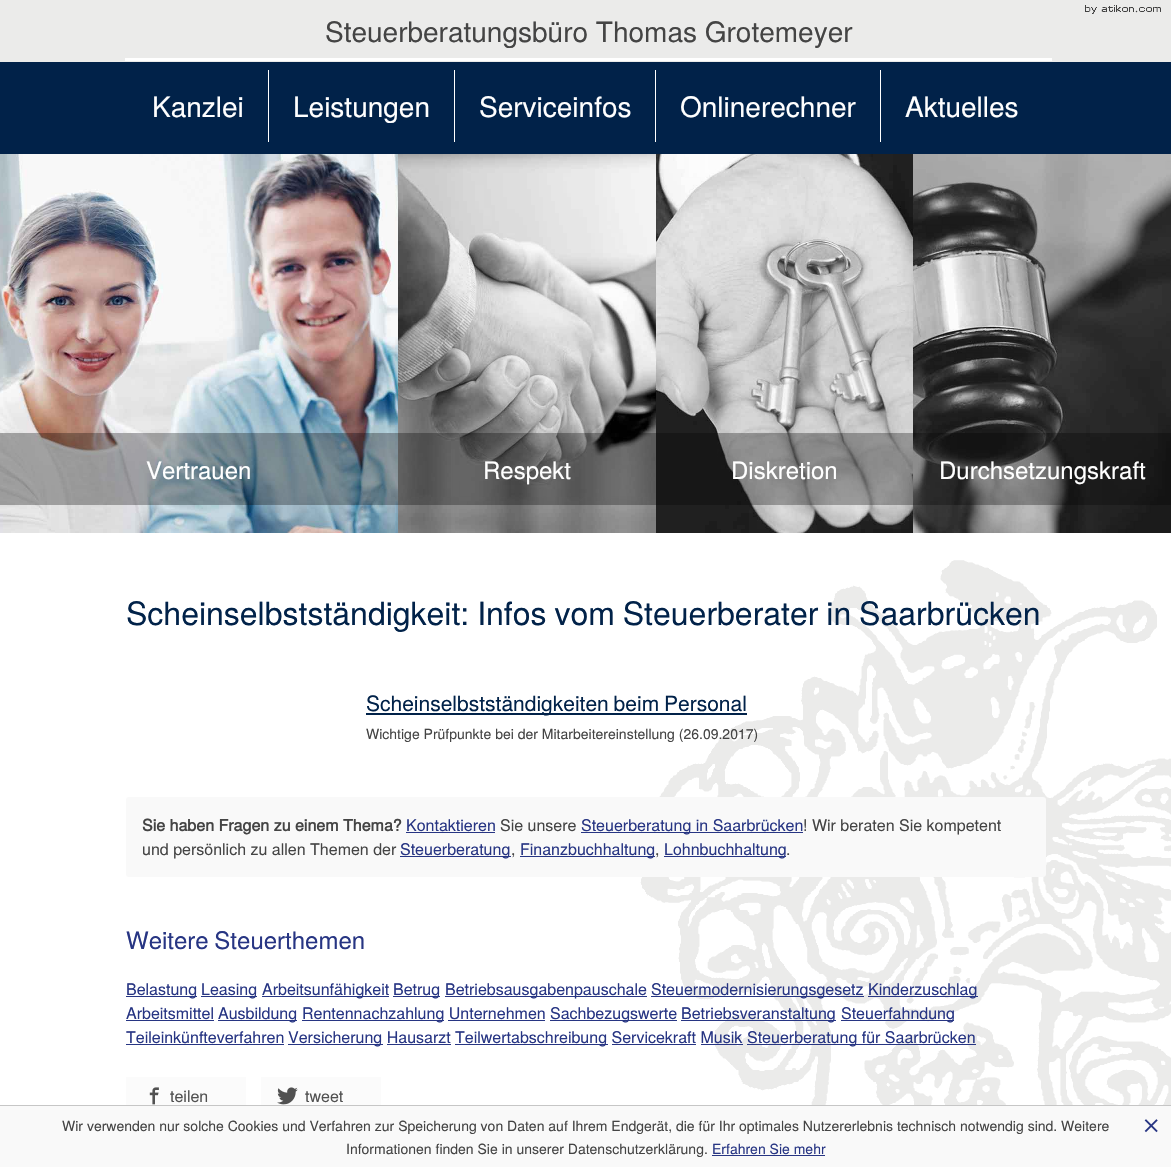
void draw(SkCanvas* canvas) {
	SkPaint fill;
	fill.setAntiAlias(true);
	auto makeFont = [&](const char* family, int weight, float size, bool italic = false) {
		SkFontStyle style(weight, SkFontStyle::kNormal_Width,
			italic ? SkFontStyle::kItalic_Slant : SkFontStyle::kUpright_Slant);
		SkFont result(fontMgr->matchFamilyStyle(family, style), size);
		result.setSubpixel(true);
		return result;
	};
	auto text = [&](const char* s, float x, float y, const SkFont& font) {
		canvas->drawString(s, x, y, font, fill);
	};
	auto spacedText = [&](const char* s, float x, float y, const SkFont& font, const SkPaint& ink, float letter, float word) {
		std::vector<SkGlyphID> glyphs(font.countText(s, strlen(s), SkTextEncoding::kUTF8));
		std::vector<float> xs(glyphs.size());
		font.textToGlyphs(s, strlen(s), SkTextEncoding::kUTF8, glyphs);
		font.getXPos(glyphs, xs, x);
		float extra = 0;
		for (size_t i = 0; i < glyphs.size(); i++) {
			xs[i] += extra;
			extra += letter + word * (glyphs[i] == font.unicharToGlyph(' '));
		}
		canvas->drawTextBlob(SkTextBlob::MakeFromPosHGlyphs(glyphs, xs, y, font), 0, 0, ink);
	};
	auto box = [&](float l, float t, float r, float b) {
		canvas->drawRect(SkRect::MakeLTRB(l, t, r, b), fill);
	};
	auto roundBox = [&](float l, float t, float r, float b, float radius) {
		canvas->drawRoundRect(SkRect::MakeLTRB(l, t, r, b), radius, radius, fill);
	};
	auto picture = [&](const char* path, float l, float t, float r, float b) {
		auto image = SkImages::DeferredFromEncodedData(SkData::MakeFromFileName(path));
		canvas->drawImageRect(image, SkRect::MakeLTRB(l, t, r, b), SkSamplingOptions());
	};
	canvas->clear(0xFFFFFFFF);
	fill.setColor(0xFFEBEBEA);
	box(0, 0, 1171, 62);
	picture("image0.png", 1085, 5, 1161, 14);
	fill.setColor(0xFFFFFFFF);
	box(125, 58, 1052, 61);
	fill.setColor(0xFF012249);
	box(0, 62, 1171, 154);
	fill.setColor(0xFFFFFFFF);
	box(268, 70, 269, 142);
	box(454, 70, 455, 142);
	box(655, 70, 656, 142);
	box(880, 70, 881, 142);
	picture("image1.png", 0, 154, 398, 533);
	fill.setColor(0x4D000000);
	box(0, 433, 398, 505);
	picture("image2.png", 398, 154, 656, 533);
	box(398, 433, 656, 505);
	picture("image3.png", 656, 154, 913, 533);
	box(656, 433, 913, 505);
	picture("image4.png", 913, 154, 1171, 533);
	box(913, 433, 1171, 505);
	picture("image5.png", 629, 560, 1171, 1105);
	fill.setColor(0xFF012249);
	box(366, 713, 747, 715);
	fill.setColor(0xFFF9F9F9);
	roundBox(126, 797, 1046, 877, 3);
	fill.setColor(0xFF273583);
	box(406, 832, 495, 833);
	box(581, 832, 803, 833);
	box(400, 856, 511, 857);
	box(520, 856, 655, 857);
	box(664, 856, 786, 857);
	box(126, 996, 197, 997);
	box(201, 996, 257, 997);
	box(262, 996, 389, 997);
	box(393, 996, 440, 997);
	box(445, 996, 647, 997);
	box(651, 996, 864, 997);
	box(868, 996, 978, 997);
	box(126, 1020, 214, 1021);
	box(218, 1020, 297, 1021);
	box(302, 1020, 444, 1021);
	box(550, 1020, 677, 1021);
	box(681, 1020, 836, 1021);
	box(841, 1020, 954, 1021);
	box(448, 1020, 545, 1021);
	box(126, 1044, 284, 1045);
	box(288, 1044, 383, 1045);
	box(455, 1044, 608, 1045);
	box(747, 1044, 976, 1045);
	box(387, 1044, 451, 1045);
	box(612, 1044, 696, 1045);
	box(701, 1044, 743, 1045);
	fill.setColor(0xFFFBFBFB);
	box(126, 1077, 246, 1105);
	picture("image6.png", 149, 1087, 159, 1105);
	box(261, 1077, 381, 1105);
	picture("image7.png", 277, 1087, 298, 1105);
	fill.setColor(0xFFF9F9F9);
	box(0, 1106, 1171, 1167);
	fill.setColor(0xFFC6C6C6);
	box(0, 1105, 1171, 1106);
	picture("image8.png", 1144, 1119, 1158, 1133);
	fill.setColor(0xFF273583);
	box(712, 1155, 825, 1156);
	auto font1 = makeFont("TeX Gyre Heros", 400, 28);
	fill.setColor(0xFF444444);
	text("Steuerberatungsbüro Thomas Grotemeyer", 325, 42, font1);
	fill.setColor(0xFFFFFFFF);
	text("Kanzlei", 152, 117, font1);
	text("Leistungen", 293, 117, font1);
	text("Serviceinfos", 479, 117, font1);
	text("Onlinerechner", 680, 117, font1);
	text("Aktuelles", 905, 117, font1);
	auto font2 = makeFont("TeX Gyre Heros", 400, 24);
	text("Vertrauen", 146, 479, font2);
	text("Respekt", 483, 479, font2);
	text("Diskretion", 731, 479, font2);
	text("Durchsetzungskraft", 939, 479, font2);
	auto font3 = makeFont("TeX Gyre Heros", 400, 32);
	fill.setColor(0xFF012249);
	spacedText("Scheinselbstständigkeit: Infos vom Steuerberater in Saarbrücken", 126, 625, font3, fill, 0, -1);
	auto font4 = makeFont("TeX Gyre Heros", 400, 21);
	spacedText("Scheinselbstständigkeiten beim Personal", 366, 711, font4, fill, 0, -1);
	auto font5 = makeFont("TeX Gyre Heros", 400, 14);
	fill.setColor(0xFF444444);
	text("Wichtige Prüfpunkte bei der Mitarbeitereinstellung (26.09.2017)", 366, 739, font5);
	auto font6 = makeFont("TeX Gyre Heros", 700, 16);
	text("Sie haben Fragen zu einem Thema?", 142, 831, font6);
	auto font7 = makeFont("TeX Gyre Heros", 400, 16);
	fill.setColor(0xFF273583);
	text("Kontaktieren", 406, 831, font7);
	fill.setColor(0xFF444444);
	text("Sie unsere", 500, 831, font7);
	fill.setColor(0xFF273583);
	text("Steuerberatung in Saarbrücken", 581, 831, font7);
	fill.setColor(0xFF444444);
	text("! Wir beraten Sie kompetent", 803, 831, font7);
	text("und persönlich zu allen Themen der", 142, 855, font7);
	fill.setColor(0xFF273583);
	text("Steuerberatung", 400, 855, font7);
	fill.setColor(0xFF444444);
	text(",", 511, 855, font7);
	fill.setColor(0xFF273583);
	text("Finanzbuchhaltung", 520, 855, font7);
	fill.setColor(0xFF444444);
	text(",", 655, 855, font7);
	fill.setColor(0xFF273583);
	text("Lohnbuchhaltung", 664, 855, font7);
	fill.setColor(0xFF444444);
	text(".", 786, 855, font7);
	fill.setColor(0xFF273583);
	spacedText("Weitere Steuerthemen", 126, 949, font2, fill, 0, -1);
	text("Belastung", 126, 995, font7);
	text("Leasing", 201, 995, font7);
	text("Arbeitsunfähigkeit", 262, 995, font7);
	text("Betrug", 393, 995, font7);
	text("Betriebsausgabenpauschale", 445, 995, font7);
	text("Steuermodernisierungsgesetz", 651, 995, font7);
	text("Kinderzuschlag", 868, 995, font7);
	text("Arbeitsmittel", 126, 1019, font7);
	text("Ausbildung", 218, 1019, font7);
	text("Rentennachzahlung Unternehmen", 302, 1019, font7);
	text("Sachbezugswerte", 550, 1019, font7);
	text("Betriebsveranstaltung", 681, 1019, font7);
	text("Steuerfahndung", 841, 1019, font7);
	text("Teileinkünfteverfahren", 126, 1043, font7);
	text("Versicherung Hausarzt", 288, 1043, font7);
	text("Teilwertabschreibung Servicekraft Musik", 455, 1043, font7);
	text("Steuerberatung für Saarbrücken", 747, 1043, font7);
	fill.setColor(0xFF515151);
	text("teilen", 170, 1102, font7);
	text("tweet", 305, 1102, font7);
	fill.setColor(0xFF444444);
	text("Wir verwenden nur solche Cookies und Verfahren zur Speicherung von Daten auf Ihrem Endgerät, die für Ihr optimales Nutzererlebnis technisch notwendig sind. Weitere", 62, 1131, font5);
	text("Informationen finden Sie in unserer Datenschutzerklärung.", 346, 1154, font5);
	fill.setColor(0xFF273583);
	text("Erfahren Sie mehr", 712, 1154, font5);
}
